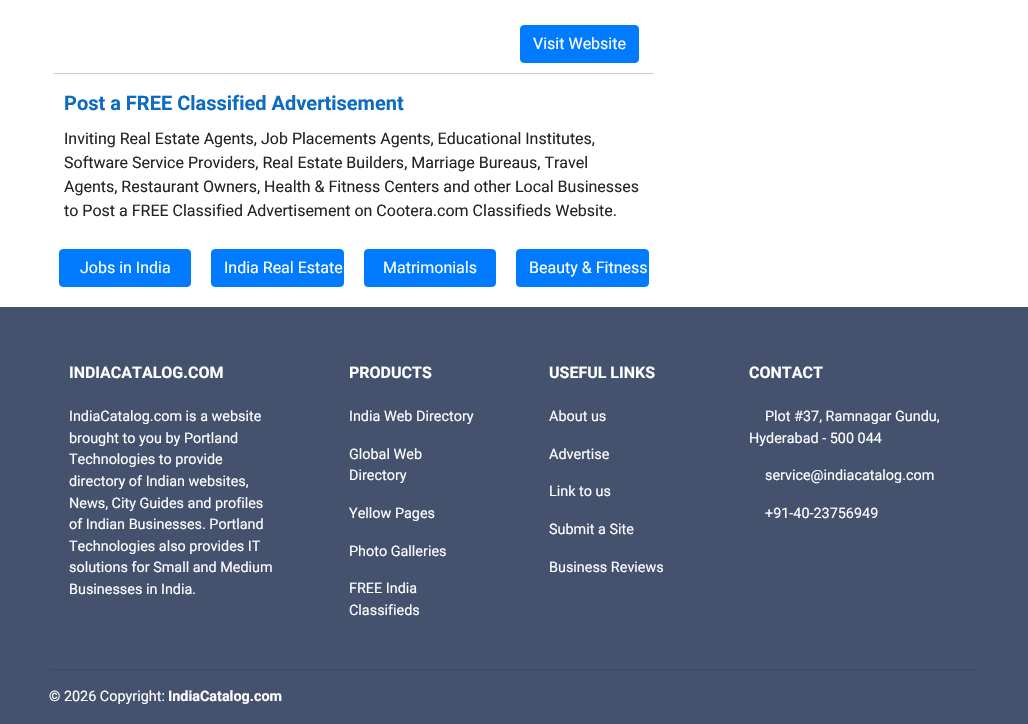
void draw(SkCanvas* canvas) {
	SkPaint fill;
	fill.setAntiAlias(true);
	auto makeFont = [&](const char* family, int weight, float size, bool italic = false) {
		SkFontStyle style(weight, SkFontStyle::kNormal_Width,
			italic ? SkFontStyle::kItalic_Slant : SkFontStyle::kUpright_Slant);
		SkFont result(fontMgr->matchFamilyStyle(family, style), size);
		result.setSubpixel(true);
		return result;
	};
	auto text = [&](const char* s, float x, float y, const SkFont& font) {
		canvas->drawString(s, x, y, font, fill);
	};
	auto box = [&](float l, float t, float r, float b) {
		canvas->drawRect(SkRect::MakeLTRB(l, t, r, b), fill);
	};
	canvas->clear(0xFFFFFFFF);
	fill.setColor(0xFF007BFF);
	canvas->drawRoundRect(SkRect::MakeLTRB(520.5f, 25.5f, 638.5f, 62.5f), 3.5f, 3.5f, fill);
	fill.setStyle(SkPaint::kStroke_Style);
	fill.setStrokeWidth(1);
	canvas->drawRoundRect(SkRect::MakeLTRB(520.5f, 25.5f, 638.5f, 62.5f), 3.5f, 3.5f, fill);
	fill.setStyle(SkPaint::kFill_Style);
	fill.setColor(0xFFCCCCCC);
	box(54, 73, 654, 74);
	fill.setColor(0xFF007BFF);
	canvas->drawRoundRect(SkRect::MakeLTRB(59.5f, 249.5f, 190.5f, 286.5f), 3.5f, 3.5f, fill);
	fill.setStyle(SkPaint::kStroke_Style);
	canvas->drawRoundRect(SkRect::MakeLTRB(59.5f, 249.5f, 190.5f, 286.5f), 3.5f, 3.5f, fill);
	fill.setStyle(SkPaint::kFill_Style);
	canvas->drawRoundRect(SkRect::MakeLTRB(211.5f, 249.5f, 343.5f, 286.5f), 3.5f, 3.5f, fill);
	fill.setStyle(SkPaint::kStroke_Style);
	canvas->drawRoundRect(SkRect::MakeLTRB(211.5f, 249.5f, 343.5f, 286.5f), 3.5f, 3.5f, fill);
	fill.setStyle(SkPaint::kFill_Style);
	canvas->drawRoundRect(SkRect::MakeLTRB(364.5f, 249.5f, 495.5f, 286.5f), 3.5f, 3.5f, fill);
	fill.setStyle(SkPaint::kStroke_Style);
	canvas->drawRoundRect(SkRect::MakeLTRB(364.5f, 249.5f, 495.5f, 286.5f), 3.5f, 3.5f, fill);
	fill.setStyle(SkPaint::kFill_Style);
	canvas->drawRoundRect(SkRect::MakeLTRB(516.5f, 249.5f, 648.5f, 286.5f), 3.5f, 3.5f, fill);
	fill.setStyle(SkPaint::kStroke_Style);
	canvas->drawRoundRect(SkRect::MakeLTRB(516.5f, 249.5f, 648.5f, 286.5f), 3.5f, 3.5f, fill);
	fill.setStyle(SkPaint::kFill_Style);
	fill.setColor(0xFF45526E);
	box(0, 307, 1028, 724);
	fill.setColor(0xFF3E4A63);
	box(49, 669, 979, 670);
	auto font1 = makeFont("Roboto", 400, 16);
	fill.setColor(0xFFFFFFFF);
	text("Visit Website", 533, 49, font1);
	auto font2 = makeFont("Roboto", 700, 20);
	fill.setColor(0xFF0E6CC0);
	text("Post a FREE Classified Advertisement", 64, 110, font2);
	fill.setColor(0xFF212529);
	text("Inviting Real Estate Agents, Job Placements Agents, Educational Institutes,", 64, 144, font1);
	text("Software Service Providers, Real Estate Builders, Marriage Bureaus, Travel", 64, 168, font1);
	text("Agents, Restaurant Owners, Health & Fitness Centers and other Local Businesses", 64, 192, font1);
	text("to Post a FREE Classified Advertisement on Cootera.com Classifieds Website.", 64, 216, font1);
	fill.setColor(0xFFFFFFFF);
	text("Jobs in India", 80, 273, font1);
	text("India Real Estate", 224, 273, font1);
	text("Matrimonials", 383, 273, font1);
	text("Beauty & Fitness", 529, 273, font1);
	auto font3 = makeFont("Roboto", 700, 16);
	text("INDIACATALOG.COM", 69, 378, font3);
	auto font4 = makeFont("Roboto", 400, 14.4f);
	text("IndiaCatalog.com is a website", 69, 421, font4);
	text("brought to you by Portland", 69, 443, font4);
	text("Technologies to provide", 69, 464, font4);
	text("directory of Indian websites,", 69, 486, font4);
	text("News, City Guides and profiles", 69, 508, font4);
	text("of Indian Businesses. Portland", 69, 529, font4);
	text("Technologies also provides IT", 69, 551, font4);
	text("solutions for Small and Medium", 69, 572, font4);
	text("Businesses in India.", 69, 594, font4);
	text("PRODUCTS", 349, 378, font3);
	text("India Web Directory", 349, 421, font4);
	text("Global Web", 349, 459, font4);
	text("Directory", 349, 480, font4);
	text("Yellow Pages", 349, 518, font4);
	text("Photo Galleries", 349, 556, font4);
	text("FREE India", 349, 593, font4);
	text("Classifieds", 349, 615, font4);
	text("USEFUL LINKS", 549, 378, font3);
	text("About us", 549, 421, font4);
	text("Advertise", 549, 459, font4);
	text("Link to us", 549, 496, font4);
	text("Submit a Site", 549, 534, font4);
	text("Business Reviews", 549, 572, font4);
	text("CONTACT", 749, 378, font3);
	text("Plot #37, Ramnagar Gundu,", 765, 421, font4);
	text("Hyderabad - 500 044", 749, 443, font4);
	text("service@indiacatalog.com", 765, 480, font4);
	text("+91-40-23756949", 765, 518, font4);
	text("© 2026 Copyright:", 49, 701, font4);
	auto font5 = makeFont("Roboto", 700, 14.4f);
	text("IndiaCatalog.com", 168, 701, font5);
}
